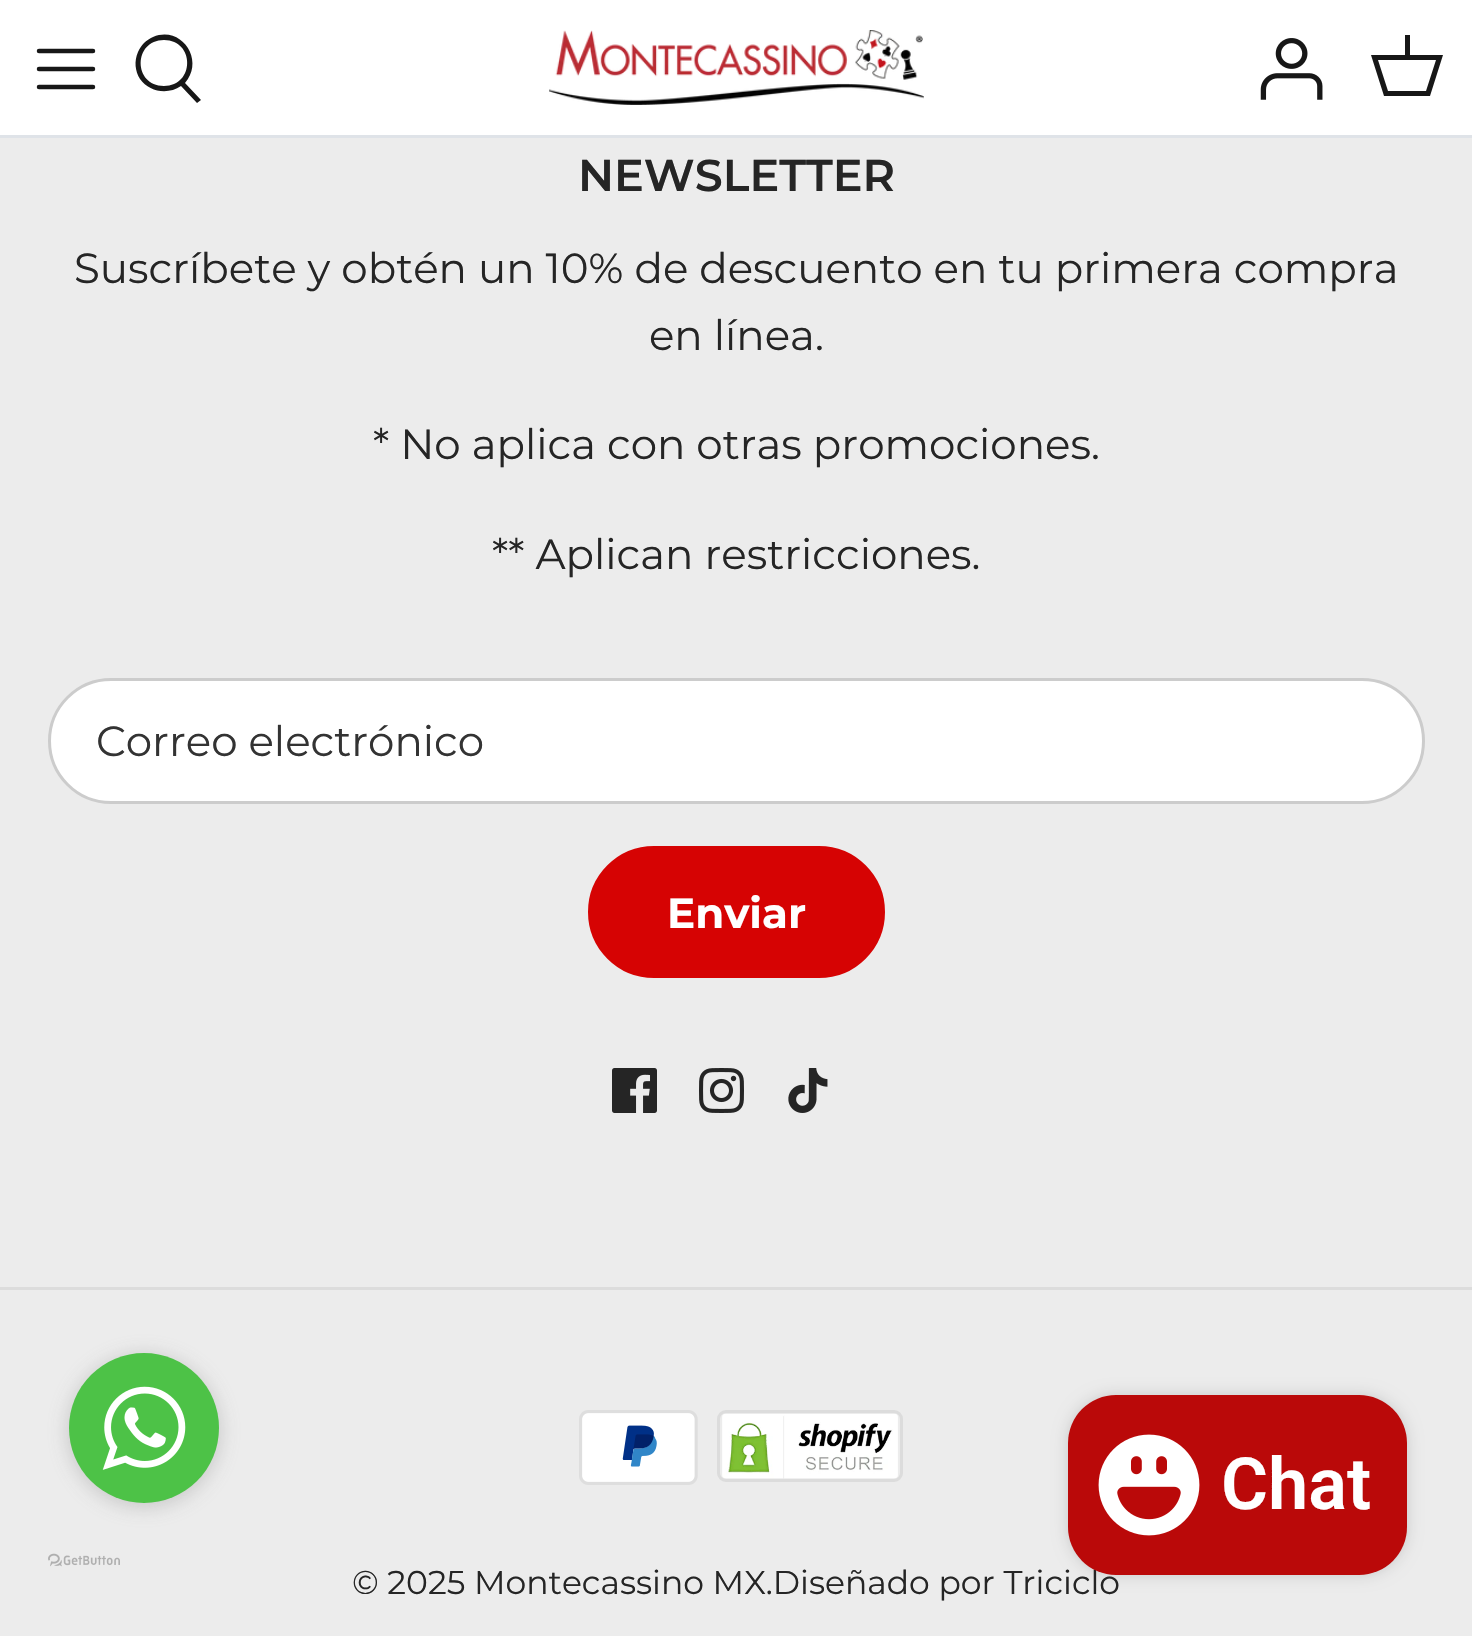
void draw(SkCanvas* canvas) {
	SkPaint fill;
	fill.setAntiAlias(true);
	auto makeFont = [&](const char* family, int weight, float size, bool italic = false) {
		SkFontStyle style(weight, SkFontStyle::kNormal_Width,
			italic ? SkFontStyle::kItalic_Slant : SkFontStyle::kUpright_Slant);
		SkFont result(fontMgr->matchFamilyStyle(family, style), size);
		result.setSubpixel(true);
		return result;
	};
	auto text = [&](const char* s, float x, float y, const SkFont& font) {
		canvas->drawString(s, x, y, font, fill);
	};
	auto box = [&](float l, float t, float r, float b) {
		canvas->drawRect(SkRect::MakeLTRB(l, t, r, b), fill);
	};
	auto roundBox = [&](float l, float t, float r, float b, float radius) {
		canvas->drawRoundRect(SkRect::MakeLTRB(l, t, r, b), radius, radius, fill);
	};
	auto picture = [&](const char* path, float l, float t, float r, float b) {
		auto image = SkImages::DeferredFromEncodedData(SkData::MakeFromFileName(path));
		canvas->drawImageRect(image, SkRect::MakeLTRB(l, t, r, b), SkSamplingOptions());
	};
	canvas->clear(0xFFECECEC);
	fill.setColor(0xFFFFFFFF);
	box(0, 0, 1472, 135);
	fill.setColor(0xFFDFE3E8);
	box(0, 135, 1472, 138);
	fill.setStyle(SkPaint::kStroke_Style);
	fill.setStrokeWidth(4.5f);
	fill.setStrokeCap(SkPaint::kRound_Cap);
	fill.setStrokeJoin(SkPaint::kRound_Join);
	fill.setColor(0xFF171717);
	canvas->drawPath(SkPathBuilder().moveTo(39, 69).lineTo(93, 69).moveTo(39, 51).lineTo(93, 51).moveTo(39, 87).lineTo(93, 87).detach(), fill);
	fill.setStyle(SkPaint::kFill_Style);
	canvas->drawPath(SkPathBuilder().moveTo(185, 83).lineTo(201, 100).lineTo(197, 103).lineTo(181, 86).cubicTo(168, 95, 149, 92, 140, 79).cubicTo(135, 71, 134, 61, 138, 52).cubicTo(141, 45, 146, 40, 153, 37).cubicTo(182, 25, 205, 61, 185, 83).close().moveTo(164, 86).cubicTo(195, 86, 195, 40, 164, 40).cubicTo(133, 40, 133, 86, 164, 86).close().detach(), fill);
	picture("image0.png", 549, 30, 924, 105);
	picture("image1.png", 1260, 38, 1323, 100);
	canvas->drawPath(SkPathBuilder().moveTo(1405, 55).lineTo(1405, 35).lineTo(1410, 35).lineTo(1410, 55).lineTo(1443, 55).lineTo(1430, 96).lineTo(1384, 96).lineTo(1371, 55).close().moveTo(1378, 60).lineTo(1388, 91).lineTo(1426, 91).lineTo(1436, 60).close().detach(), fill);
	fill.setColor(0xFFFFFFFF);
	canvas->drawRoundRect(SkRect::MakeLTRB(49.5f, 679.5f, 1423.5f, 802.5f), 61.5f, 61.5f, fill);
	fill.setStyle(SkPaint::kStroke_Style);
	fill.setStrokeWidth(3);
	fill.setStrokeCap(SkPaint::kButt_Cap);
	fill.setStrokeJoin(SkPaint::kMiter_Join);
	fill.setColor(0xFFCCCCCC);
	canvas->drawRoundRect(SkRect::MakeLTRB(49.5f, 679.5f, 1423.5f, 802.5f), 61.5f, 61.5f, fill);
	fill.setStyle(SkPaint::kFill_Style);
	fill.setColor(0xFFD60303);
	canvas->drawRoundRect(SkRect::MakeLTRB(589.5f, 847.5f, 883.5f, 976.5f), 64.5f, 64.5f, fill);
	fill.setStyle(SkPaint::kStroke_Style);
	canvas->drawRoundRect(SkRect::MakeLTRB(589.5f, 847.5f, 883.5f, 976.5f), 64.5f, 64.5f, fill);
	picture("image2.png", 612, 1068, 657, 1113);
	picture("image3.png", 699, 1068, 744, 1113);
	picture("image4.png", 788, 1068, 828, 1113);
	fill.setStyle(SkPaint::kFill_Style);
	fill.setColor(0xFFDCDCDC);
	box(0, 1287, 1472, 1290);
	picture("image5.png", 579, 1410, 698, 1485);
	fill.setStyle(SkPaint::kStroke_Style);
	canvas->drawRoundRect(SkRect::MakeLTRB(718.5f, 1411.5f, 901.5f, 1480.5f), 7.5f, 7.5f, fill);
	picture("image6.png", 722, 1414, 898, 1479);
	fill.setStyle(SkPaint::kFill_Style);
	fill.setColor(0x66888888);
	fill.setMaskFilter(SkMaskFilter::MakeBlur(kNormal_SkBlurStyle, 10.5f));
	canvas->drawRoundRect(SkRect::MakeLTRB(69, 1356, 219, 1506), 75, 75, fill);
	fill.setMaskFilter(nullptr);
	fill.setColor(0xFF4DC247);
	canvas->drawCircle(144, 1428, 75, fill);
	picture("image7.png", 102, 1386, 186, 1470);
	picture("image8.png", 48, 1553, 120, 1567);
	fill.setColor(0x26000000);
	fill.setMaskFilter(SkMaskFilter::MakeBlur(kNormal_SkBlurStyle, 7.5f));
	canvas->drawRoundRect(SkRect::MakeLTRB(1068, 1395, 1407, 1575), 48, 48, fill);
	fill.setMaskFilter(nullptr);
	auto font1 = makeFont("Montserrat", 600, 44.5f);
	fill.setColor(0xFF252525);
	text("NEWSLETTER", 578, 191, font1);
	auto font2 = makeFont("Montserrat", 400, 42);
	text("Suscríbete y obtén un 10% de descuento en tu primera compra", 74, 283, font2);
	text("en línea.", 649, 350, font2);
	text("* No aplica con otras promociones.", 373, 459, font2);
	text("** Aplican restricciones.", 492, 569, font2);
	fill.setColor(0xFF333333);
	text("Correo electrónico", 96, 756, font2);
	auto font3 = makeFont("Montserrat", 700, 42);
	fill.setColor(0xFFFFFFFF);
	text("Enviar", 667, 928, font3);
	auto font4 = makeFont("Montserrat", 400, 33);
	fill.setColor(0xFF252525);
	text("© 2025 Montecassino MX.Diseñado por Triciclo", 352, 1594, font4);
	fill.setColor(0xFFBA0909);
	roundBox(1068, 1395, 1407, 1575, 48);
	picture("image9.png", 1098, 1434, 1200, 1536);
	auto font5 = makeFont("Roboto", 600, 72);
	fill.setColor(0xFFFFFFFF);
	text("Chat", 1221, 1509, font5);
}
